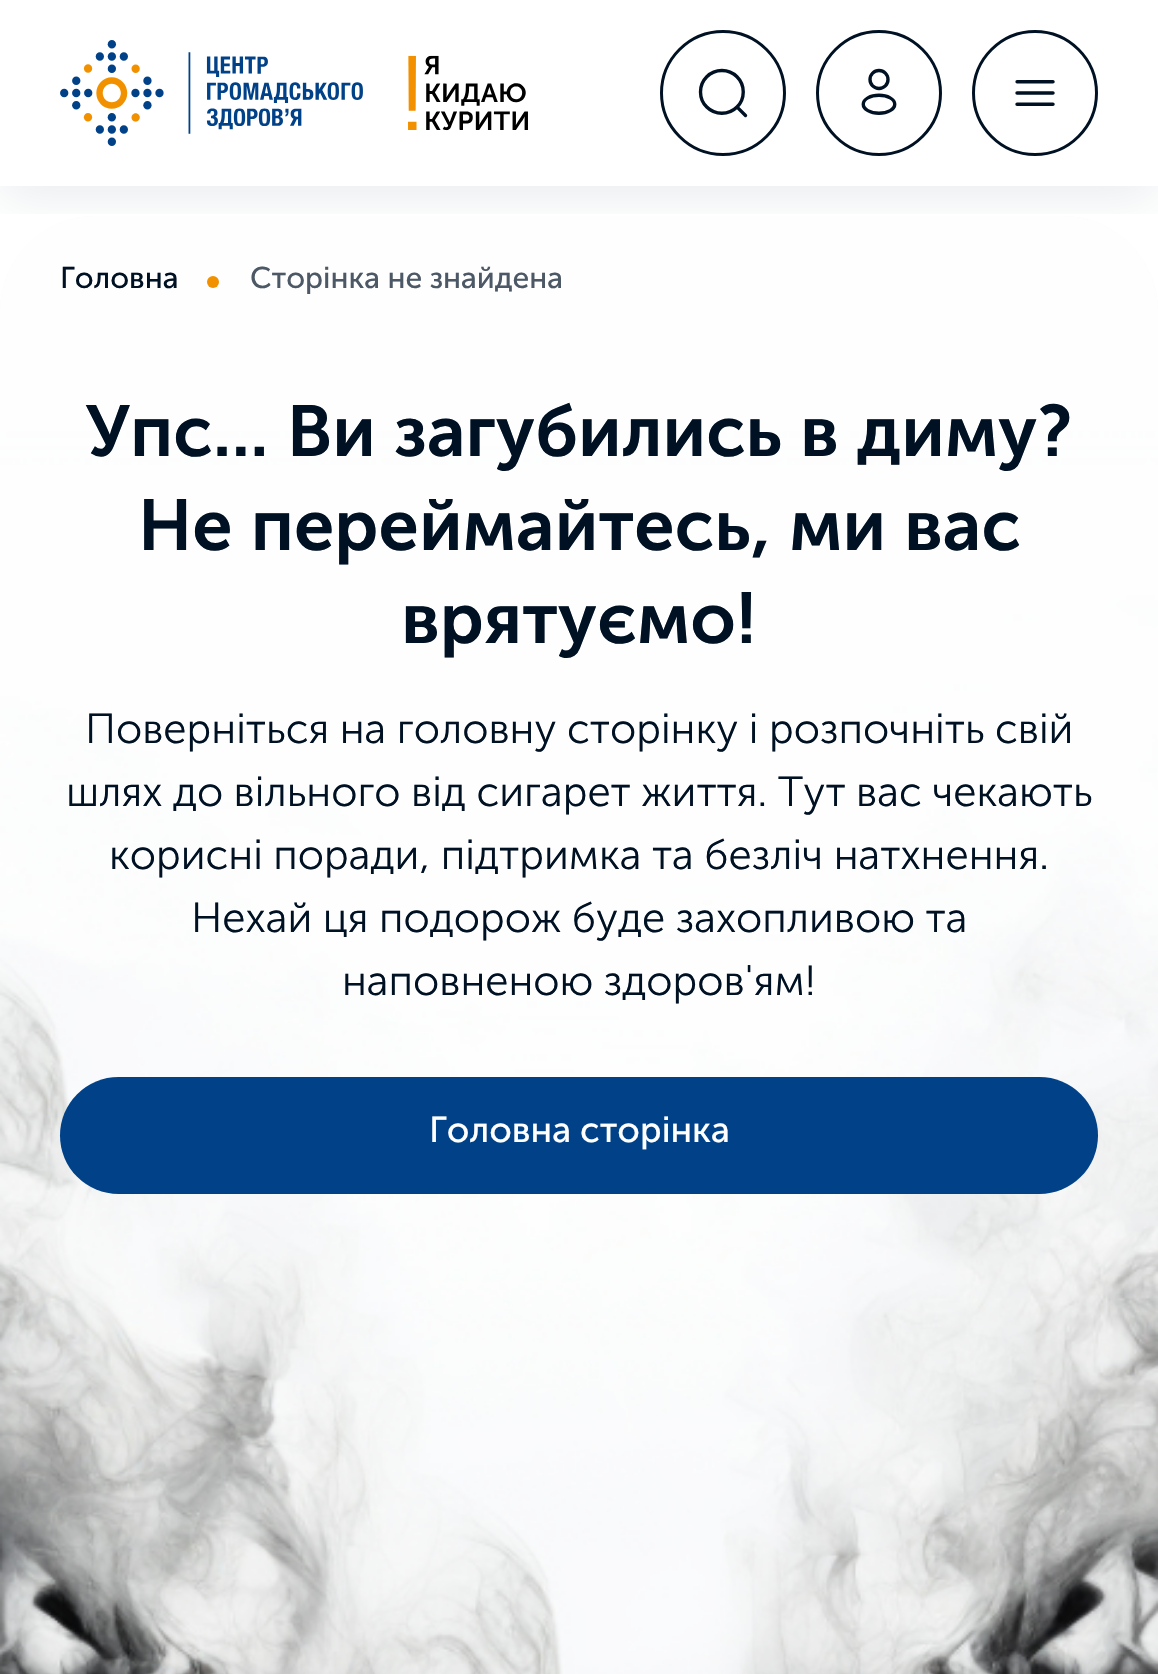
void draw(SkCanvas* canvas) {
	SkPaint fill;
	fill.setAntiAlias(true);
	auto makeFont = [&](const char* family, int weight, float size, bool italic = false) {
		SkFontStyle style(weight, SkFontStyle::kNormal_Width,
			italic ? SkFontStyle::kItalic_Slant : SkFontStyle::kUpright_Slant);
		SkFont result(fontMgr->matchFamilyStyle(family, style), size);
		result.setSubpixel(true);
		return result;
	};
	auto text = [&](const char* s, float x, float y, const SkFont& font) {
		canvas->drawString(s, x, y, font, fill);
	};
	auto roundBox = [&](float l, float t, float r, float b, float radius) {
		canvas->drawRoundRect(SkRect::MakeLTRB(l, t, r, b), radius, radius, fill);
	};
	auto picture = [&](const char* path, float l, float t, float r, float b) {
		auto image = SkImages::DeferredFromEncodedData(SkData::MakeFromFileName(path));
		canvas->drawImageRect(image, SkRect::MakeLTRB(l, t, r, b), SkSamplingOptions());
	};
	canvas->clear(0xFFFFFFFF);
	fill.setColor(0xFFF7F9FF);
	roundBox(0, 216, 1158, 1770, 96);
	picture("image5.png", 0, 216, 1158, 1674);
	canvas->save();
	canvas->clipRect(SkRect::MakeLTRB(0, 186, 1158, 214));
	fill.setColor(0x14001124);
	fill.setMaskFilter(SkMaskFilter::MakeBlur(kNormal_SkBlurStyle, 24));
	canvas->drawRect(SkRect::MakeLTRB(0, 12, 1158, 198), fill);
	fill.setMaskFilter(nullptr);
	canvas->restore();
	picture("image0.png", 60, 40, 363, 146);
	picture("image1.png", 408, 55, 528, 131);
	fill.setStyle(SkPaint::kStroke_Style);
	fill.setStrokeWidth(3);
	fill.setColor(0xFF001124);
	canvas->drawCircle(723, 93, 61.5f, fill);
	picture("image2.png", 698, 68, 748, 118);
	canvas->drawCircle(879, 93, 61.5f, fill);
	picture("image3.png", 861, 68, 897, 115);
	canvas->drawCircle(1035, 93, 61.5f, fill);
	picture("image4.png", 1015, 80, 1055, 106);
	fill.setStyle(SkPaint::kFill_Style);
	fill.setColor(0xFFF29100);
	canvas->drawCircle(213, 282, 6, fill);
	fill.setColor(0xFF004188);
	roundBox(60, 1077, 1098, 1194, 58.5f);
	auto font1 = makeFont("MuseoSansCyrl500", 400, 30);
	fill.setColor(0xFF001124);
	text("Головна", 60, 288, font1);
	fill.setColor(0xFF4C5865);
	text("Сторінка не знайдена", 250, 288, font1);
	auto font2 = makeFont("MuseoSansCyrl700", 400, 72);
	fill.setColor(0xFF001124);
	text("Упс... Ви загубились в диму?", 86, 456, font2);
	text("Не переймайтесь, ми вас", 138, 550, font2);
	text("врятуємо!", 401, 643, font2);
	auto font3 = makeFont("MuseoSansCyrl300", 400, 42);
	text("Поверніться на головну сторінку і розпочніть свій", 85, 743, font3);
	text("шлях до вільного від сигарет життя. Тут вас чекають", 66, 806, font3);
	text("корисні поради, підтримка та безліч натхнення.", 109, 869, font3);
	text("Нехай ця подорож буде захопливою та", 191, 932, font3);
	text("наповненою здоров'ям!", 342, 995, font3);
	auto font4 = makeFont("MuseoSansCyrl500", 400, 36);
	fill.setColor(0xFFFFFFFF);
	text("Головна сторінка", 429, 1142, font4);
}
